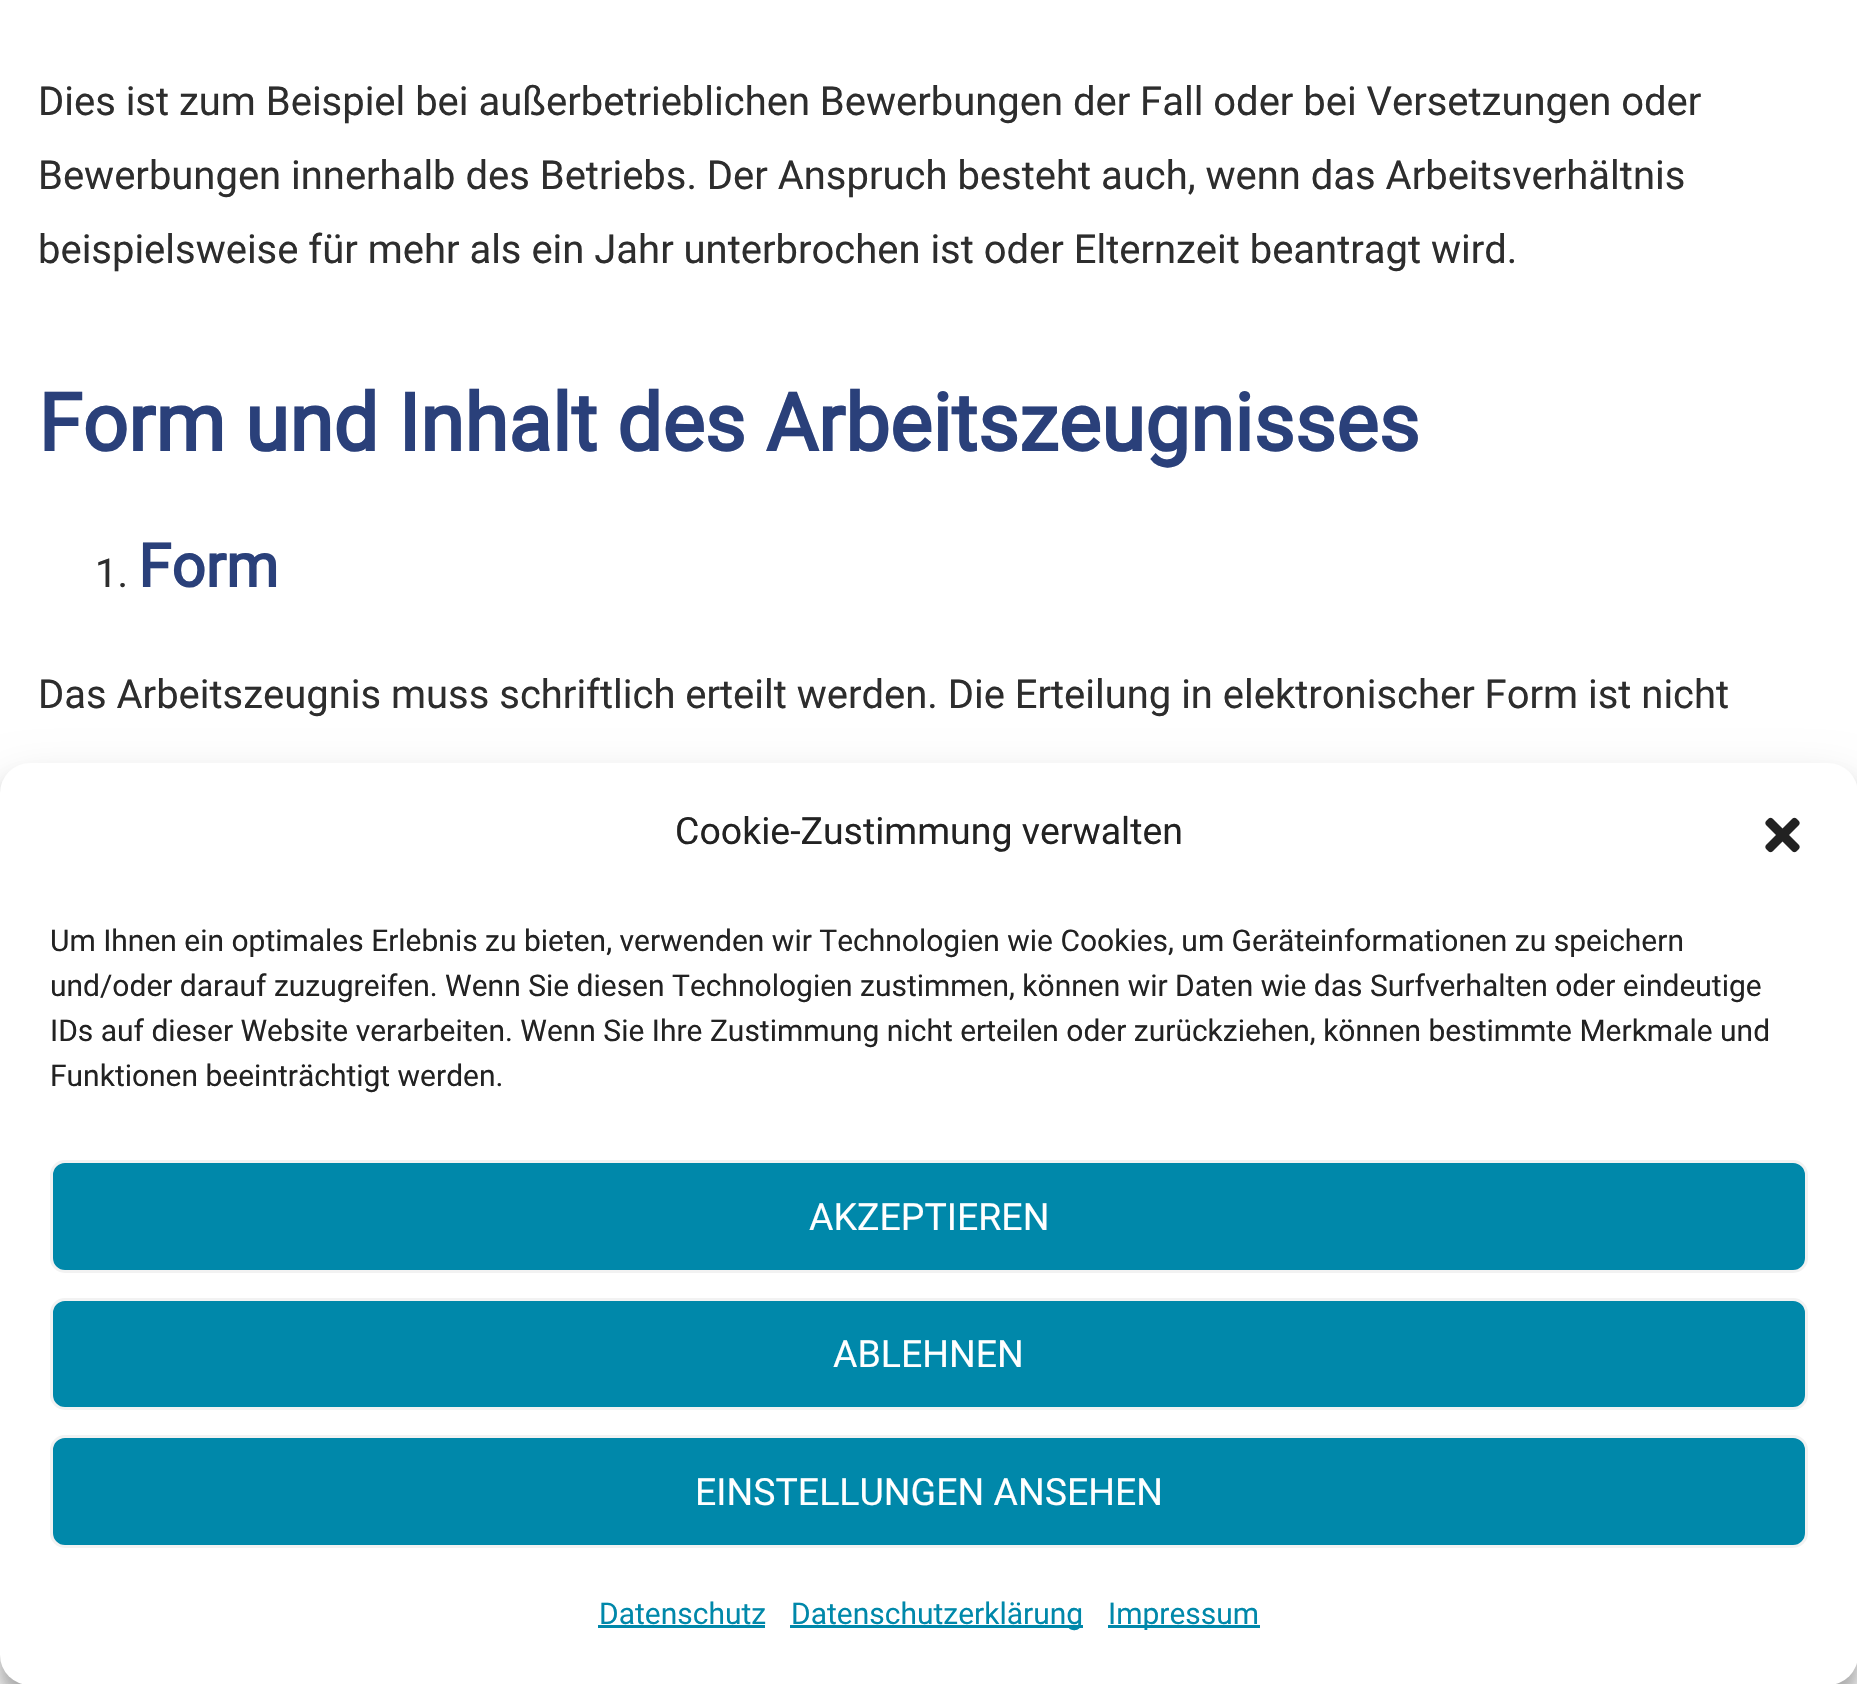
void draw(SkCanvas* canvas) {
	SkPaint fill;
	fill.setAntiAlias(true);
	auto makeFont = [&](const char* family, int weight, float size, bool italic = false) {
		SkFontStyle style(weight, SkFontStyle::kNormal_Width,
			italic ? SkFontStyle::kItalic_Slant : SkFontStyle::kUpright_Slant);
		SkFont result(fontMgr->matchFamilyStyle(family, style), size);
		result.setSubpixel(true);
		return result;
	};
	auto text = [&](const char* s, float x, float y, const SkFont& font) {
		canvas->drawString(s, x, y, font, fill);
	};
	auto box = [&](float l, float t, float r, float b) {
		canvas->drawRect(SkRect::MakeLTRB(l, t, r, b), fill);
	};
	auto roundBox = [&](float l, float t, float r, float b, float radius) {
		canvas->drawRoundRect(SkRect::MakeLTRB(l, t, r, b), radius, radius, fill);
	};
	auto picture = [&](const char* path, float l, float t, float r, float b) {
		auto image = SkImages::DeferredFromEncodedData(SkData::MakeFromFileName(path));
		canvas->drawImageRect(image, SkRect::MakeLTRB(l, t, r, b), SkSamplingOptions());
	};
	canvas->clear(0xFFFFFFFF);
	fill.setColor(0x3B000000);
	fill.setMaskFilter(SkMaskFilter::MakeBlur(kNormal_SkBlurStyle, 7.5f));
	canvas->drawRoundRect(SkRect::MakeLTRB(0, 778, 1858, 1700), 30, 30, fill);
	fill.setMaskFilter(nullptr);
	fill.setColor(0x30000000);
	fill.setMaskFilter(SkMaskFilter::MakeBlur(kNormal_SkBlurStyle, 25));
	canvas->drawRoundRect(SkRect::MakeLTRB(0, 788, 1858, 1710), 30, 30, fill);
	fill.setMaskFilter(nullptr);
	fill.setColor(0xFFFFFFFF);
	roundBox(0, 763, 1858, 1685, 30);
	picture("image0.png", 1765, 817, 1800, 853);
	fill.setColor(0xFF0088AA);
	canvas->drawRoundRect(SkRect::MakeLTRB(51.5f, 1161.5f, 1806.5f, 1271.5f), 13.5f, 13.5f, fill);
	fill.setStyle(SkPaint::kStroke_Style);
	fill.setStrokeWidth(3);
	fill.setColor(0xFFF2F2F2);
	canvas->drawRoundRect(SkRect::MakeLTRB(51.5f, 1161.5f, 1806.5f, 1271.5f), 13.5f, 13.5f, fill);
	fill.setStyle(SkPaint::kFill_Style);
	fill.setColor(0xFF0088AA);
	canvas->drawRoundRect(SkRect::MakeLTRB(51.5f, 1299.5f, 1806.5f, 1408.5f), 13.5f, 13.5f, fill);
	fill.setStyle(SkPaint::kStroke_Style);
	fill.setColor(0xFFF2F2F2);
	canvas->drawRoundRect(SkRect::MakeLTRB(51.5f, 1299.5f, 1806.5f, 1408.5f), 13.5f, 13.5f, fill);
	fill.setStyle(SkPaint::kFill_Style);
	fill.setColor(0xFF0088AA);
	canvas->drawRoundRect(SkRect::MakeLTRB(51.5f, 1436.5f, 1806.5f, 1546.5f), 13.5f, 13.5f, fill);
	fill.setStyle(SkPaint::kStroke_Style);
	fill.setColor(0xFFF2F2F2);
	canvas->drawRoundRect(SkRect::MakeLTRB(51.5f, 1436.5f, 1806.5f, 1546.5f), 13.5f, 13.5f, fill);
	fill.setStyle(SkPaint::kFill_Style);
	fill.setColor(0xFF0088AA);
	box(598, 1625, 765, 1628);
	box(790, 1625, 1083, 1628);
	box(1108, 1625, 1260, 1628);
	auto font1 = makeFont("Roboto", 400, 40);
	fill.setColor(0xFF2D2D2D);
	text("Dies ist zum Beispiel bei außerbetrieblichen Bewerbungen der Fall oder bei Versetzungen oder", 38, 115, font1);
	text("Bewerbungen innerhalb des Betriebs. Der Anspruch besteht auch, wenn das Arbeitsverhältnis", 38, 189, font1);
	text("beispielsweise für mehr als ein Jahr unterbrochen ist oder Elternzeit beantragt wird.", 38, 263, font1);
	auto font2 = makeFont("Roboto", 700, 80);
	fill.setColor(0xFF2A407A);
	text("Form und Inhalt des Arbeitszeugnisses", 38, 451, font2);
	fill.setColor(0xFF2D2D2D);
	text("1.", 95, 587, font1);
	auto font3 = makeFont("Roboto", 700, 60);
	fill.setColor(0xFF2A407A);
	text("Form", 138, 587, font3);
	fill.setColor(0xFF2D2D2D);
	text("Das Arbeitszeugnis muss schriftlich erteilt werden. Die Erteilung in elektronischer Form ist nicht", 38, 708, font1);
	auto font4 = makeFont("Roboto", 400, 37.5f);
	fill.setColor(0xFF222222);
	text("Cookie-Zustimmung verwalten", 675, 844, font4);
	auto font5 = makeFont("Roboto", 400, 30);
	text("Um Ihnen ein optimales Erlebnis zu bieten, verwenden wir Technologien wie Cookies, um Geräteinformationen zu speichern", 50, 951, font5);
	text("und/oder darauf zuzugreifen. Wenn Sie diesen Technologien zustimmen, können wir Daten wie das Surfverhalten oder eindeutige", 50, 996, font5);
	text("IDs auf dieser Website verarbeiten. Wenn Sie Ihre Zustimmung nicht erteilen oder zurückziehen, können bestimmte Merkmale und", 50, 1041, font5);
	text("Funktionen beeinträchtigt werden.", 50, 1086, font5);
	fill.setColor(0xFFFFFFFF);
	text("AKZEPTIEREN", 809, 1230, font4);
	text("ABLEHNEN", 833, 1367, font4);
	text("EINSTELLUNGEN ANSEHEN", 695, 1505, font4);
	fill.setColor(0xFF0088AA);
	text("Datenschutz", 599, 1624, font5);
	text("Datenschutzerklärung", 791, 1624, font5);
	text("Impressum", 1108, 1624, font5);
}
